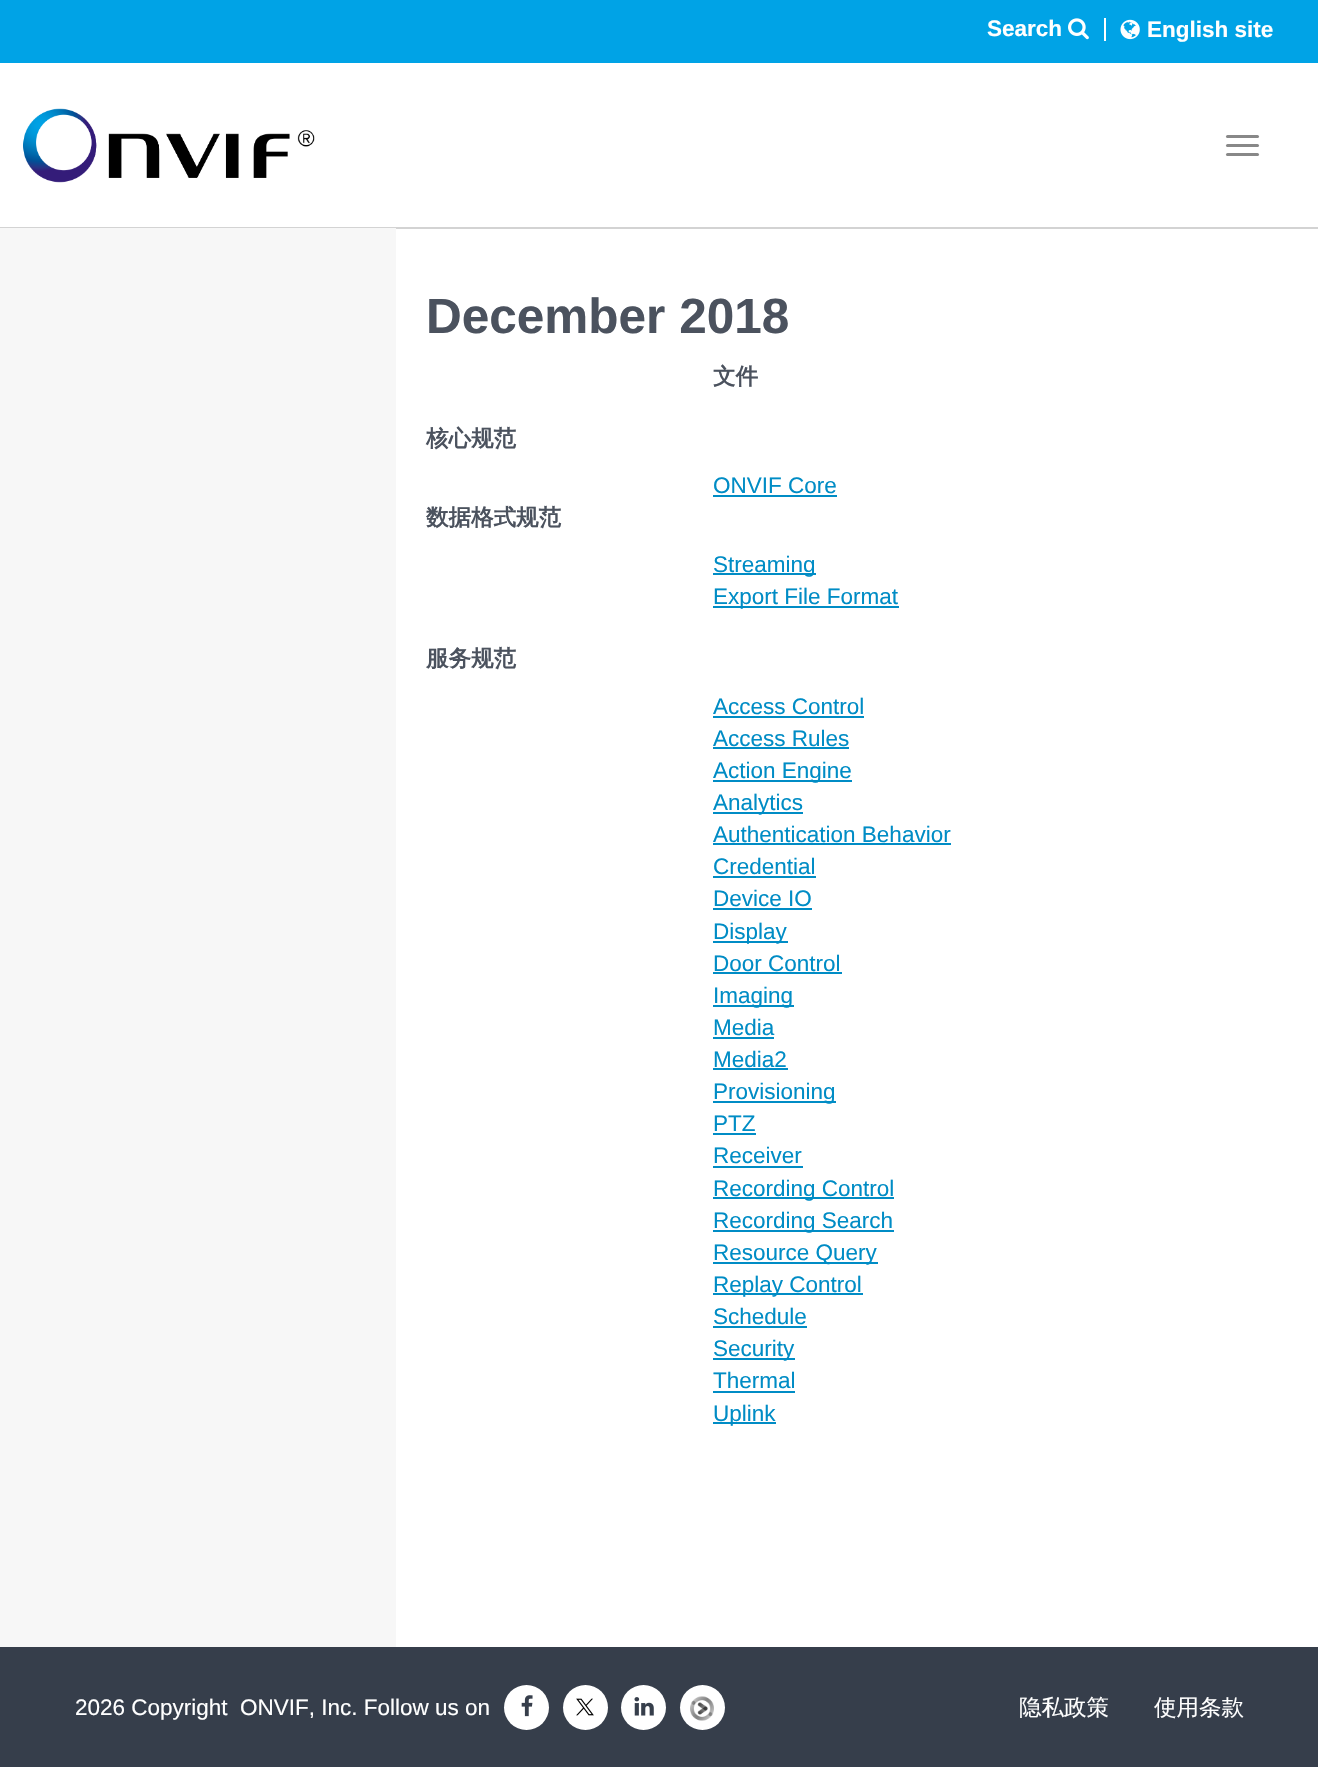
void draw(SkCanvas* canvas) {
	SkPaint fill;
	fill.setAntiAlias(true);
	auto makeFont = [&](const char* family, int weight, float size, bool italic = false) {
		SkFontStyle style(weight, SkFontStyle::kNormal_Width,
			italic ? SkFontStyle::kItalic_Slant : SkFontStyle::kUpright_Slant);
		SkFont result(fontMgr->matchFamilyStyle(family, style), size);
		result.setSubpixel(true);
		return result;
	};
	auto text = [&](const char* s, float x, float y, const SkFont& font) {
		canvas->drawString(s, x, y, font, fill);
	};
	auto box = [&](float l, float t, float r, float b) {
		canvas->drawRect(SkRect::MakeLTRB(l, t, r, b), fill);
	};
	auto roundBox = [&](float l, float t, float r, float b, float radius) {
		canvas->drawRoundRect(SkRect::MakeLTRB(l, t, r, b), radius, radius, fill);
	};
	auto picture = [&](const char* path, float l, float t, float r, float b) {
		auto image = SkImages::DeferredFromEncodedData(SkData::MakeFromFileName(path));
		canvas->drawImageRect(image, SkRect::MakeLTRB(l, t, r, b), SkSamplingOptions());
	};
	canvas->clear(0xFFFFFFFF);
	fill.setColor(0xFF00A3E6);
	box(0, 0, 1318, 63);
	picture("image0.png", 1068, 18, 1089, 40);
	fill.setColor(0xFFFFFFFF);
	box(1104, 18, 1106, 41);
	picture("image1.png", 1120, 19, 1140, 40);
	fill.setColor(0xFFD3D3D3);
	box(0, 227, 1318, 229);
	picture("image2.png", 23, 108, 315, 183);
	fill.setColor(0xFF888888);
	roundBox(1226, 135, 1259, 138, 1.5f);
	roundBox(1226, 144, 1259, 147, 1.5f);
	roundBox(1226, 153, 1259, 156, 1.5f);
	fill.setColor(0xFFF7F7F7);
	box(0, 228, 396, 1647);
	fill.setColor(0xFF008CC5);
	box(713, 495, 837, 497);
	box(713, 573, 816, 575);
	box(713, 606, 899, 608);
	box(713, 716, 864, 718);
	box(713, 747, 849, 749);
	box(713, 780, 852, 782);
	box(713, 812, 803, 814);
	box(713, 843, 951, 845);
	box(713, 876, 816, 878);
	box(713, 908, 812, 910);
	box(713, 941, 788, 943);
	box(713, 972, 842, 974);
	box(713, 1005, 794, 1007);
	box(713, 1037, 774, 1039);
	box(713, 1068, 788, 1070);
	box(713, 1101, 836, 1103);
	box(713, 1133, 756, 1135);
	box(713, 1166, 803, 1168);
	box(713, 1197, 894, 1199);
	box(713, 1230, 894, 1232);
	box(713, 1262, 878, 1264);
	box(713, 1293, 863, 1295);
	box(713, 1326, 807, 1328);
	box(713, 1358, 795, 1360);
	box(713, 1391, 795, 1393);
	box(713, 1422, 776, 1424);
	fill.setColor(0xFF363E4B);
	box(0, 1647, 1318, 1767);
	fill.setColor(0xFFFFFFFF);
	canvas->drawCircle(526.5f, 1707.5f, 22.5f, fill);
	picture("image3.png", 521, 1695, 533, 1717);
	canvas->drawCircle(585.5f, 1707.5f, 22.5f, fill);
	picture("image4.png", 576, 1698, 594, 1716);
	canvas->drawCircle(643.5f, 1707.5f, 22.5f, fill);
	picture("image5.png", 634, 1697, 654, 1716);
	canvas->drawCircle(702.5f, 1707.5f, 22.5f, fill);
	picture("image6.png", 690, 1696, 714, 1721);
	auto font1 = makeFont("Liberation Sans", 700, 22.5f);
	text("Search", 987, 36, font1);
	text("English site", 1147, 37, font1);
	auto font2 = makeFont("Liberation Sans", 700, 49.5f);
	fill.setColor(0xFF4B525E);
	text("December 2018", 426, 333, font2);
	auto font3 = makeFont("WenQuanYi Zen Hei", 700, 22.5f);
	text("文件", 713, 384, font3);
	text("核心规范", 426, 446, font3);
	auto font4 = makeFont("Liberation Sans", 400, 22.5f);
	fill.setColor(0xFF008CC5);
	text("ONVIF Core", 713, 493, font4);
	fill.setColor(0xFF4B525E);
	text("数据格式规范", 426, 525, font3);
	fill.setColor(0xFF008CC5);
	text("Streaming", 713, 572, font4);
	text("Export File Format", 713, 604, font4);
	fill.setColor(0xFF4B525E);
	text("服务规范", 426, 666, font3);
	fill.setColor(0xFF008CC5);
	text("Access Control", 713, 714, font4);
	text("Access Rules", 713, 746, font4);
	text("Action Engine", 713, 778, font4);
	text("Analytics", 713, 810, font4);
	text("Authentication Behavior", 713, 842, font4);
	text("Credential", 713, 874, font4);
	text("Device IO", 713, 906, font4);
	text("Display", 713, 939, font4);
	text("Door Control", 713, 971, font4);
	text("Imaging", 713, 1003, font4);
	text("Media", 713, 1035, font4);
	text("Media2", 713, 1067, font4);
	text("Provisioning", 713, 1099, font4);
	text("PTZ", 713, 1131, font4);
	text("Receiver", 713, 1163, font4);
	text("Recording Control", 713, 1196, font4);
	text("Recording Search", 713, 1228, font4);
	text("Resource Query", 713, 1260, font4);
	text("Replay Control", 713, 1292, font4);
	text("Schedule", 713, 1324, font4);
	text("Security", 713, 1356, font4);
	text("Thermal", 713, 1388, font4);
	text("Uplink", 713, 1421, font4);
	fill.setColor(0xFFFFFFFF);
	text("2026 Copyright", 75, 1715, font4);
	text("ONVIF, Inc. Follow us on", 240, 1715, font4);
	auto font5 = makeFont("WenQuanYi Zen Hei", 500, 22.5f);
	text("隐私政策", 1019, 1715, font5);
	text("使用条款", 1154, 1715, font5);
}
